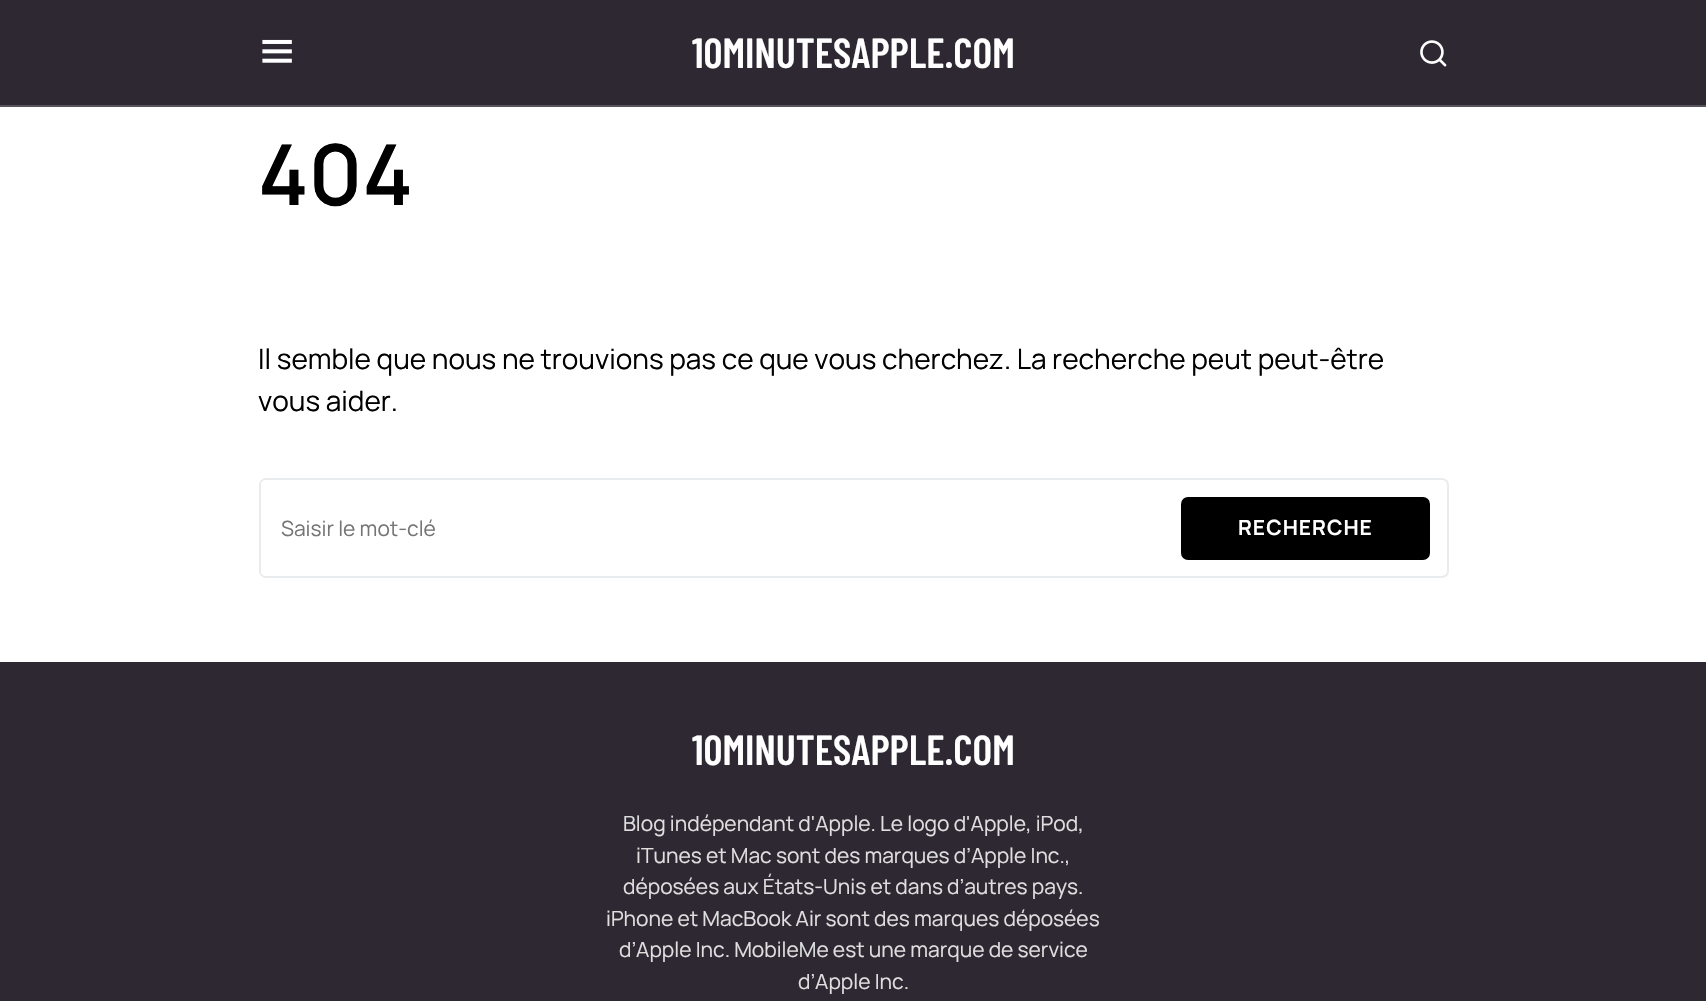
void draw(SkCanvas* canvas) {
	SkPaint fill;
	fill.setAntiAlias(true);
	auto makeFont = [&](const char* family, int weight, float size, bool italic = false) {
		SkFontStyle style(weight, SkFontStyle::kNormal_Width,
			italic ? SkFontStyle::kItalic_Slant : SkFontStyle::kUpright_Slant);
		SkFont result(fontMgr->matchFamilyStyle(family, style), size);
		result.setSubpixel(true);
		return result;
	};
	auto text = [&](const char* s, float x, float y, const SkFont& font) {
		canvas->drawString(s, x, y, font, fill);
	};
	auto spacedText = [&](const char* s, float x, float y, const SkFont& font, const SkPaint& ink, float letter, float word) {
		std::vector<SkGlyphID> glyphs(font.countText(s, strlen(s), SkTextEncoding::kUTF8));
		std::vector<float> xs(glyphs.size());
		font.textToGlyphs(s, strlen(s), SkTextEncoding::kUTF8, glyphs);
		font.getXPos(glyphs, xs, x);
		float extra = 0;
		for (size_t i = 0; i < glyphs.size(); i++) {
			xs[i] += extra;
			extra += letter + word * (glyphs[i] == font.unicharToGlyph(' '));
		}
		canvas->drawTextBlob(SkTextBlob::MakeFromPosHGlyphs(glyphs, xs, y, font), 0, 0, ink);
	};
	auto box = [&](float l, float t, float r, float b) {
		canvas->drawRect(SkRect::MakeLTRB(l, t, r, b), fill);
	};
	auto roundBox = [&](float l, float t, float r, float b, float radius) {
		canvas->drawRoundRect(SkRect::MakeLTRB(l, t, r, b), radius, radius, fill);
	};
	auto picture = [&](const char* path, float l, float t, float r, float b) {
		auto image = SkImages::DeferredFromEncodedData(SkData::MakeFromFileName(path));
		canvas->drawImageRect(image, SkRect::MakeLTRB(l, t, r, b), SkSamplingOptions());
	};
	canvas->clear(0xFFFFFFFF);
	fill.setColor(0xFF2D2832);
	box(0, 0, 1706, 105);
	fill.setColor(0xFF57535B);
	box(0, 105, 1706, 107);
	picture("image0.png", 262, 39, 292, 63);
	picture("image1.png", 1420, 40, 1447, 67);
	fill.setStyle(SkPaint::kStroke_Style);
	fill.setStrokeWidth(2);
	fill.setColor(0xFFE9ECEF);
	canvas->drawRoundRect(SkRect::MakeLTRB(260, 479, 1448, 577), 6, 6, fill);
	fill.setStyle(SkPaint::kFill_Style);
	fill.setColor(0xFFFFFFFF);
	canvas->drawPath(SkPathBuilder().moveTo(266, 480).lineTo(1181, 480).lineTo(1181, 576).lineTo(266, 576).cubicTo(263, 576, 261, 574, 261, 571).lineTo(261, 485).cubicTo(261, 482, 263, 480, 266, 480).close().detach(), fill);
	fill.setColor(0xFF000000);
	roundBox(1181, 497, 1430, 560, 7);
	fill.setColor(0xFF2D2832);
	box(0, 662, 1706, 1001);
	auto font1 = makeFont("Barlow Condensed", 600, 42);
	fill.setColor(0xFFFFFFFF);
	text("10MINUTESAPPLE.COM", 692, 68, font1);
	auto font2 = makeFont("Manrope", 600, 84);
	fill.setColor(0xFF000000);
	text("404", 258, 205, font2);
	auto font3 = makeFont("Manrope", 400, 28);
	text("Il semble que nous ne trouvions pas ce que vous cherchez. La recherche peut peut-être", 258, 369, font3);
	text("vous aider.", 258, 411, font3);
	auto font4 = makeFont("Manrope", 400, 21);
	fill.setColor(0xFF757575);
	text("Saisir le mot-clé", 281, 536, font4);
	auto font5 = makeFont("Manrope", 700, 21);
	fill.setColor(0xFFFFFFFF);
	spacedText("RECHERCHE", 1238, 535, font5, fill, 1, 0);
	text("10MINUTESAPPLE.COM", 692, 765, font1);
	fill.setColor(0xFFE0DFE0);
	text("Blog indépendant d'Apple. Le logo d'Apple, iPod,", 623, 831, font4);
	text("iTunes et Mac sont des marques d’Apple Inc.,", 636, 863, font4);
	text("déposées aux États-Unis et dans d’autres pays.", 623, 894, font4);
	text("iPhone et MacBook Air sont des marques déposées", 606, 926, font4);
	text("d’Apple Inc. MobileMe est une marque de service", 619, 957, font4);
	text("d’Apple Inc.", 798, 989, font4);
}
